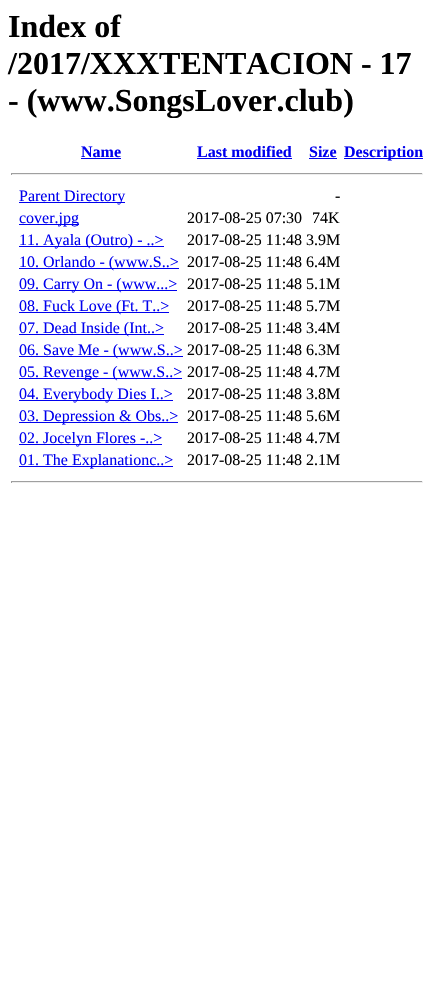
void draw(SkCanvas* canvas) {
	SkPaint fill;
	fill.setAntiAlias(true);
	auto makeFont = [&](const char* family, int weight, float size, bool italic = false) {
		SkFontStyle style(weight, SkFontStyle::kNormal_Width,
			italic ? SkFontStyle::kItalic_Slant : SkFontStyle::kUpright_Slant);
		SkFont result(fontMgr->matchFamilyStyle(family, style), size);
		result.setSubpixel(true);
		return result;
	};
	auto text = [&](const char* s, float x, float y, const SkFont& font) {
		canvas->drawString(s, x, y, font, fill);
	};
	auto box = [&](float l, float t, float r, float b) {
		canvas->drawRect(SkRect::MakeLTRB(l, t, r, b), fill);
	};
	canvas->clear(0xFFFFFFFF);
	fill.setColor(0xFF0000EE);
	box(81, 158, 121, 159);
	box(197, 158, 292, 159);
	box(309, 158, 337, 159);
	box(344, 158, 423, 159);
	fill.setColor(0xFF9F9F9F);
	box(11, 173, 423, 174);
	fill.setColor(0xFFEEEEEE);
	box(422, 173, 423, 175);
	box(11, 174, 423, 175);
	fill.setColor(0xFF9F9F9F);
	box(11, 173, 12, 175);
	fill.setColor(0xFF0000EE);
	box(19, 202, 125, 203);
	box(19, 224, 79, 225);
	box(19, 246, 164, 247);
	box(19, 268, 179, 269);
	box(19, 290, 177, 291);
	box(19, 312, 169, 313);
	box(19, 334, 164, 335);
	box(19, 356, 183, 357);
	box(19, 378, 182, 379);
	box(19, 400, 173, 401);
	box(19, 422, 178, 423);
	box(19, 444, 162, 445);
	box(19, 466, 173, 467);
	fill.setColor(0xFF9F9F9F);
	box(11, 481, 423, 482);
	fill.setColor(0xFFEEEEEE);
	box(422, 481, 423, 483);
	box(11, 482, 423, 483);
	fill.setColor(0xFF9F9F9F);
	box(11, 481, 12, 483);
	auto font1 = makeFont("Liberation Serif", 700, 32);
	fill.setColor(0xFF000000);
	text("Index of", 8, 37, font1);
	text("/2017/XXXTENTACION - 17", 8, 74, font1);
	text("- (www.SongsLover.club)", 8, 111, font1);
	auto font2 = makeFont("Liberation Serif", 700, 16);
	fill.setColor(0xFF0000EE);
	text("Name", 81, 157, font2);
	text("Last modified", 197, 157, font2);
	text("Size", 309, 157, font2);
	text("Description", 344, 157, font2);
	auto font3 = makeFont("Liberation Serif", 400, 16);
	text("Parent Directory", 19, 201, font3);
	fill.setColor(0xFF000000);
	text("-", 335, 201, font3);
	fill.setColor(0xFF0000EE);
	text("cover.jpg", 19, 223, font3);
	fill.setColor(0xFF000000);
	text("2017-08-25 07:30", 187, 223, font3);
	text("74K", 312, 223, font3);
	fill.setColor(0xFF0000EE);
	text("11. Ayala (Outro) - ..>", 19, 245, font3);
	fill.setColor(0xFF000000);
	text("2017-08-25 11:48 3.9M", 187, 245, font3);
	fill.setColor(0xFF0000EE);
	text("10. Orlando - (www.S..>", 19, 267, font3);
	fill.setColor(0xFF000000);
	text("2017-08-25 11:48 6.4M", 187, 267, font3);
	fill.setColor(0xFF0000EE);
	text("09. Carry On - (www...>", 19, 289, font3);
	fill.setColor(0xFF000000);
	text("2017-08-25 11:48 5.1M", 187, 289, font3);
	fill.setColor(0xFF0000EE);
	text("08. Fuck Love (Ft. T..>", 19, 311, font3);
	fill.setColor(0xFF000000);
	text("2017-08-25 11:48 5.7M", 187, 311, font3);
	fill.setColor(0xFF0000EE);
	text("07. Dead Inside (Int..>", 19, 333, font3);
	fill.setColor(0xFF000000);
	text("2017-08-25 11:48 3.4M", 187, 333, font3);
	fill.setColor(0xFF0000EE);
	text("06. Save Me - (www.S..>", 19, 355, font3);
	fill.setColor(0xFF000000);
	text("2017-08-25 11:48 6.3M", 187, 355, font3);
	fill.setColor(0xFF0000EE);
	text("05. Revenge - (www.S..>", 19, 377, font3);
	fill.setColor(0xFF000000);
	text("2017-08-25 11:48 4.7M", 187, 377, font3);
	fill.setColor(0xFF0000EE);
	text("04. Everybody Dies I..>", 19, 399, font3);
	fill.setColor(0xFF000000);
	text("2017-08-25 11:48 3.8M", 187, 399, font3);
	fill.setColor(0xFF0000EE);
	text("03. Depression & Obs..>", 19, 421, font3);
	fill.setColor(0xFF000000);
	text("2017-08-25 11:48 5.6M", 187, 421, font3);
	fill.setColor(0xFF0000EE);
	text("02. Jocelyn Flores -..>", 19, 443, font3);
	fill.setColor(0xFF000000);
	text("2017-08-25 11:48 4.7M", 187, 443, font3);
	fill.setColor(0xFF0000EE);
	text("01. The Explanationc..>", 19, 465, font3);
	fill.setColor(0xFF000000);
	text("2017-08-25 11:48 2.1M", 187, 465, font3);
}
